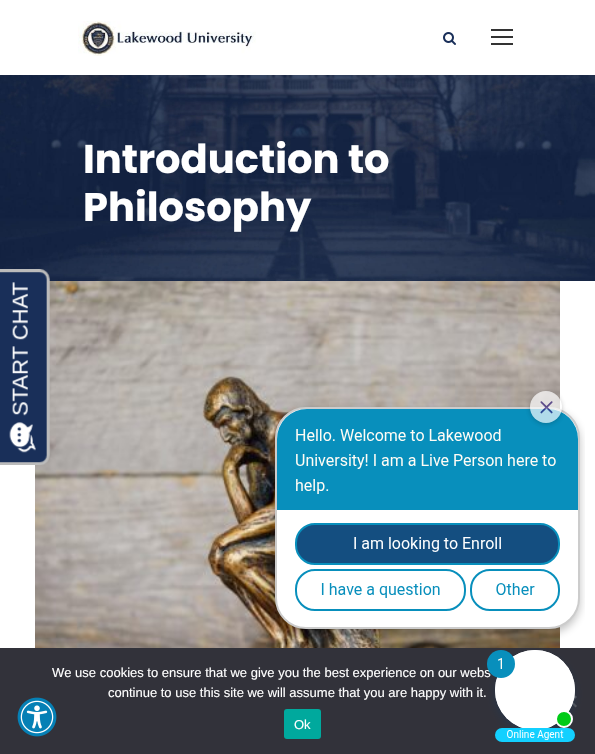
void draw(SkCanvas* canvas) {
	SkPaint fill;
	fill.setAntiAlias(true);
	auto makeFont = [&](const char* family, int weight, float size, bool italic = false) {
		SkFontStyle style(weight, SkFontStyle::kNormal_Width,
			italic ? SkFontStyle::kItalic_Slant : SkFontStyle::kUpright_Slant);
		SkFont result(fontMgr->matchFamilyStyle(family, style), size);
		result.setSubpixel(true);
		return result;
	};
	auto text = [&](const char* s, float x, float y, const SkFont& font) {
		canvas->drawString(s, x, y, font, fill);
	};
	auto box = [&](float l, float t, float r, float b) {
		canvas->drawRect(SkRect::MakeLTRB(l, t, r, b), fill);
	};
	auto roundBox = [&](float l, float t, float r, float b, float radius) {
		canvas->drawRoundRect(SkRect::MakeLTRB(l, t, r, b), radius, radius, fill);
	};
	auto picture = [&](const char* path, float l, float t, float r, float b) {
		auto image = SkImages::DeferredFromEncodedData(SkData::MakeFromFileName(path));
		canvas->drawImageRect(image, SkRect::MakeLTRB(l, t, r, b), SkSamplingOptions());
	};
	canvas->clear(0xFFFFFFFF);
	picture("image0.png", 78, 21, 256, 56);
	picture("image1.png", 443, 32, 456, 45);
	fill.setColor(0xFF333333);
	box(491, 29, 513, 31);
	box(491, 36, 513, 38);
	box(491, 43, 513, 45);
	picture("image2.png", 0, 75, 595, 281);
	picture("image3.png", 35, 281, 560, 648);
	picture("image4.png", 0, 269, 50, 465);
	fill.setColor(0xFF32323A);
	box(0, 648, 595, 754);
	fill.setColor(0xFFFFFFFF);
	canvas->drawPath(SkPathBuilder().moveTo(37, 698.5f).cubicTo(27, 698.5f, 18.5f, 707, 18.5f, 717).cubicTo(18.5f, 727, 27, 735.5f, 37, 735.5f).cubicTo(47, 735.5f, 55.5f, 727, 55.5f, 717).cubicTo(55.5f, 707, 47, 698.5f, 37, 698.5f).close().detach(), fill);
	picture("image6.png", 17, 697, 57, 737);
	fill.setColor(0xFF59595D);
	canvas->drawPath(SkPathBuilder().moveTo(575.5f, 695.5f).lineTo(577, 697).lineTo(566.5f, 707.5f).lineTo(565, 706).close().detach(), fill);
	canvas->drawPath(SkPathBuilder().moveTo(565, 697).lineTo(566.5f, 695.5f).lineTo(577, 706).lineTo(575.5f, 707.5f).close().detach(), fill);
	fill.setColor(0xFF00A99D);
	roundBox(284, 709, 321, 739, 3);
	auto font1 = makeFont("Poppins", 700, 40);
	fill.setColor(0xFFFFFFFF);
	text("Introduction to", 83, 173, font1);
	text("Philosophy", 83, 221, font1);
	auto font2 = makeFont("Liberation Sans", 400, 13);
	text("We use cookies to ensure that we give you the best experience on our webs", 52, 677, font2);
	text("continue to use this site we will assume that you are happy with it.", 108, 697, font2);
	text("Ok", 294, 729, font2);
	picture("image5.png", 269, 389, 585, 742);
}
